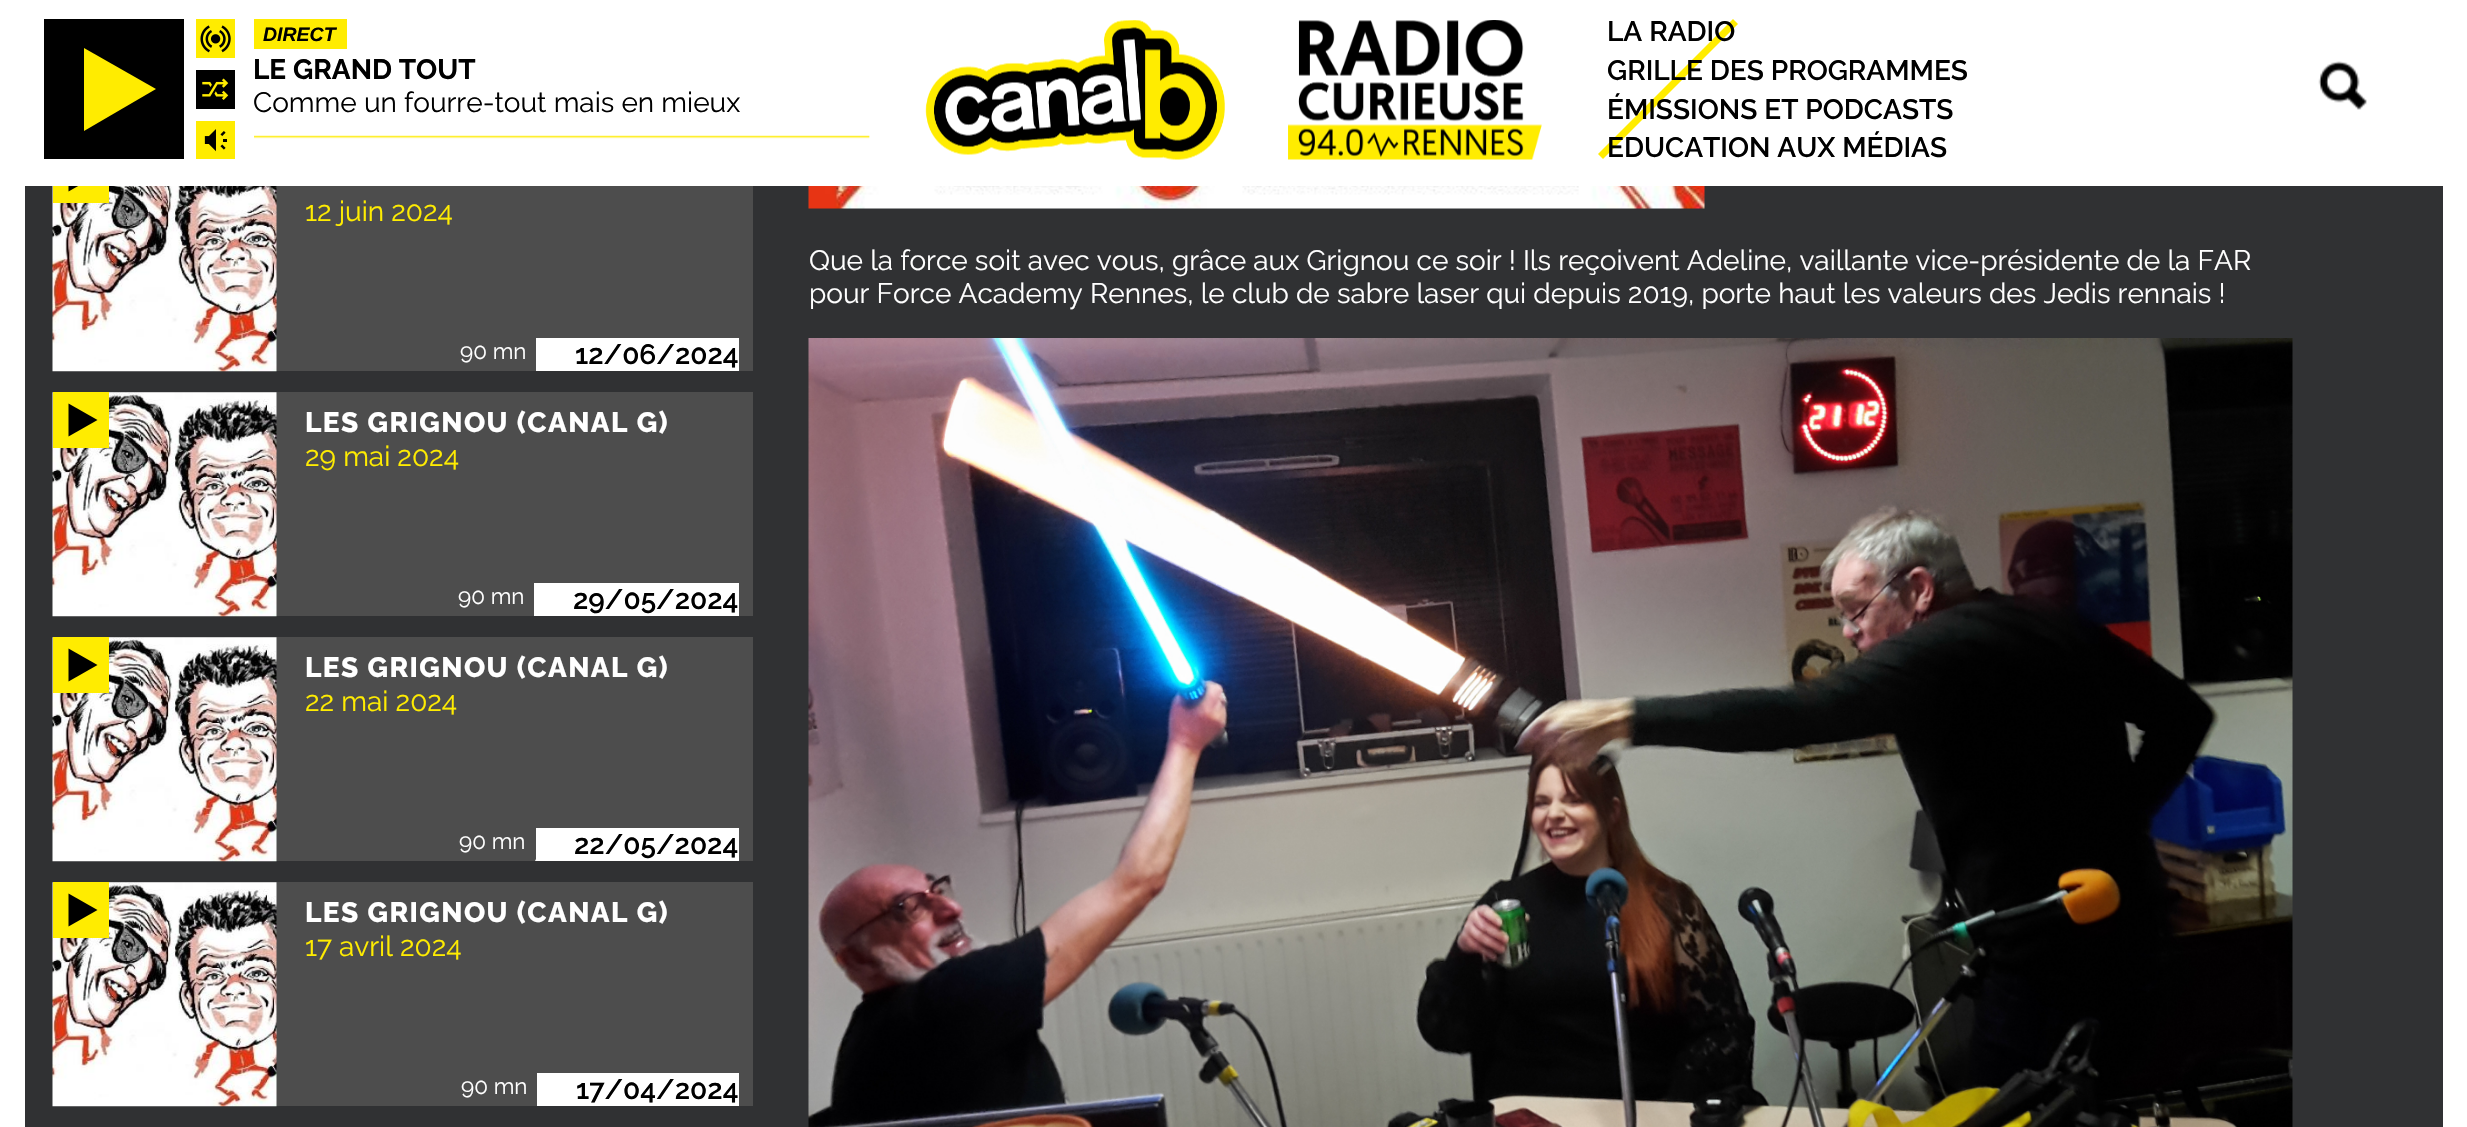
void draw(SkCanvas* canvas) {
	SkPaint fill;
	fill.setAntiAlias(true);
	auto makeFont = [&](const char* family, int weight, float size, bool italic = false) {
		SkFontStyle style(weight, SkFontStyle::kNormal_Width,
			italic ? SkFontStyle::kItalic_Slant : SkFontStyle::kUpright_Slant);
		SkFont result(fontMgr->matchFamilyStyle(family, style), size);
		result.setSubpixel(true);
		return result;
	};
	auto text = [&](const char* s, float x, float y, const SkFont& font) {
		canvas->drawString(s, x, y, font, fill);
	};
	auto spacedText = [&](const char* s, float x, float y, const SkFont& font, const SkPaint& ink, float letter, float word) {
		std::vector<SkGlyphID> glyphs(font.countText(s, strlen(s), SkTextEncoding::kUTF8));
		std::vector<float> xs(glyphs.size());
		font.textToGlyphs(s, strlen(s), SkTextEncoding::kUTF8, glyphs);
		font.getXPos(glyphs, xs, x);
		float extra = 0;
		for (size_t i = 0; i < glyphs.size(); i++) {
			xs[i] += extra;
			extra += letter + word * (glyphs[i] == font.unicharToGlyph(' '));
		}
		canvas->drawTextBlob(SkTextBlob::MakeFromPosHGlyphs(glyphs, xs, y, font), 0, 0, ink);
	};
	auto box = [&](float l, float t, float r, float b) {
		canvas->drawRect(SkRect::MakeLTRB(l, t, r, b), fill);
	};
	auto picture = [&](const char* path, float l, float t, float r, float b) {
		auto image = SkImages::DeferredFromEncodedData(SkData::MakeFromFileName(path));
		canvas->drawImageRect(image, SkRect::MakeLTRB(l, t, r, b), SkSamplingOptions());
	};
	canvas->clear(0xFFFFFFFF);
	fill.setColor(0xFF303133);
	box(25, 186, 2443, 1127);
	fill.setColor(0xFF4D4D4D);
	box(276, 186, 753, 371);
	picture("image7.png", 52, 186, 277, 372);
	fill.setColor(0xFFFFEC00);
	box(53, 186, 109, 203);
	fill.setColor(0xFF000000);
	canvas->drawPath(SkPathBuilder().moveTo(68.5f, 158.5f).lineTo(97.5f, 175).lineTo(68.5f, 191.5f).close().detach(), fill);
	fill.setColor(0xFFFFFFFF);
	box(68, 158, 98, 186);
	fill.setColor(0xFF000000);
	box(44, 19, 184, 159);
	fill.setColor(0xFFFFEC00);
	canvas->drawPath(SkPathBuilder().moveTo(84, 48).lineTo(156, 89).lineTo(84, 131).close().detach(), fill);
	picture("image0.png", 196, 19, 235, 58);
	picture("image1.png", 196, 70, 235, 109);
	picture("image2.png", 196, 121, 235, 159);
	fill.setColor(0xFFFFEC01);
	box(254, 19, 347, 49);
	picture("image3.png", 254, 135, 870, 139);
	picture("image4.png", 925, 20, 1225, 160);
	picture("image5.png", 1288, 20, 1542, 160);
	fill.setColor(0xFFFFEC00);
	canvas->drawPath(SkPathBuilder().moveTo(1598, 154).lineTo(1733, 19).lineTo(1738, 24).lineTo(1603, 159).close().detach(), fill);
	picture("image6.png", 2318, 61, 2367, 110);
	fill.setColor(0xFFFFFFFF);
	box(536, 338, 739, 371);
	fill.setColor(0xFF4D4D4D);
	box(109, 392, 753, 616);
	picture("image8.png", 52, 392, 277, 617);
	fill.setColor(0xFFFFEC00);
	box(53, 392, 109, 448);
	fill.setColor(0xFF000000);
	canvas->drawPath(SkPathBuilder().moveTo(68.5f, 403.5f).lineTo(97.5f, 420).lineTo(68.5f, 436.5f).close().detach(), fill);
	fill.setColor(0xFFFFFFFF);
	box(534, 583, 739, 616);
	fill.setColor(0xFF4D4D4D);
	box(109, 637, 753, 861);
	picture("image9.png", 52, 637, 277, 862);
	fill.setColor(0xFFFFEC00);
	box(53, 637, 109, 693);
	fill.setColor(0xFF000000);
	canvas->drawPath(SkPathBuilder().moveTo(68.5f, 648.5f).lineTo(97.5f, 665).lineTo(68.5f, 681.5f).close().detach(), fill);
	fill.setColor(0xFFFFFFFF);
	box(536, 828, 739, 861);
	fill.setColor(0xFF4D4D4D);
	box(109, 882, 753, 1106);
	picture("image9.png", 52, 882, 277, 1107);
	fill.setColor(0xFFFFEC00);
	box(53, 882, 109, 938);
	fill.setColor(0xFF000000);
	canvas->drawPath(SkPathBuilder().moveTo(68.5f, 893.5f).lineTo(97.5f, 910).lineTo(68.5f, 926.5f).close().detach(), fill);
	fill.setColor(0xFFFFFFFF);
	box(537, 1073, 739, 1106);
	picture("image10.png", 808, 186, 1705, 209);
	picture("image11.png", 808, 338, 2293, 1127);
	auto font1 = makeFont("Liberation Sans", 700, 19.5f, true);
	fill.setColor(0xFF000000);
	text("DIRECT", 263, 41, font1);
	auto font2 = makeFont("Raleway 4", 100, 28);
	text("LE GRAND TOUT", 253, 79, font2);
	auto font3 = makeFont("Raleway", 100, 28);
	text("Comme un fourre-tout mais en mieux", 253, 112, font3);
	auto font4 = makeFont("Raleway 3", 100, 28);
	text("LA RADIO", 1607, 41, font4);
	text("GRILLE DES PROGRAMMES", 1607, 80, font4);
	text("ÉMISSIONS ET PODCASTS", 1607, 119, font4);
	text("EDUCATION AUX MÉDIAS", 1607, 157, font4);
	fill.setColor(0xFFFFEC01);
	text("12 juin 2024", 305, 221, font3);
	auto font5 = makeFont("Raleway", 100, 22.5f);
	fill.setColor(0xFFFFFFFF);
	text("90 mn", 460, 359, font5);
	fill.setColor(0xFF000000);
	text("12/06/2024", 575, 364, font4);
	auto font6 = makeFont("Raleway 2", 100, 28);
	fill.setColor(0xFFFFFFFF);
	spacedText("LES GRIGNOU (CANAL G)", 305, 432, font6, fill, 1.4f, 0);
	fill.setColor(0xFFFFEC01);
	text("29 mai 2024", 305, 466, font3);
	fill.setColor(0xFFFFFFFF);
	text("90 mn", 458, 604, font5);
	fill.setColor(0xFF000000);
	text("29/05/2024", 573, 609, font4);
	fill.setColor(0xFFFFFFFF);
	spacedText("LES GRIGNOU (CANAL G)", 305, 677, font6, fill, 1.4f, 0);
	fill.setColor(0xFFFFEC01);
	text("22 mai 2024", 305, 711, font3);
	fill.setColor(0xFFFFFFFF);
	text("90 mn", 459, 849, font5);
	fill.setColor(0xFF000000);
	text("22/05/2024", 574, 854, font4);
	fill.setColor(0xFFFFFFFF);
	canvas->drawPath(SkPathBuilder().moveTo(551, 828).lineTo(579, 828).lineTo(563, 861).lineTo(535, 861).close().detach(), fill);
	spacedText("LES GRIGNOU (CANAL G)", 305, 922, font6, fill, 1.4f, 0);
	fill.setColor(0xFFFFEC01);
	text("17 avril 2024", 305, 956, font3);
	fill.setColor(0xFFFFFFFF);
	text("90 mn", 461, 1094, font5);
	fill.setColor(0xFF000000);
	text("17/04/2024", 576, 1099, font4);
	fill.setColor(0xFFFFFFFF);
	text("Que la force soit avec vous, grâce aux Grignou ce soir ! Ils reçoivent Adeline, vaillante vice-présidente de la FAR", 809, 270, font3);
	text("pour Force Academy Rennes, le club de sabre laser qui depuis 2019, porte haut les valeurs des Jedis rennais !", 809, 303, font3);
}
